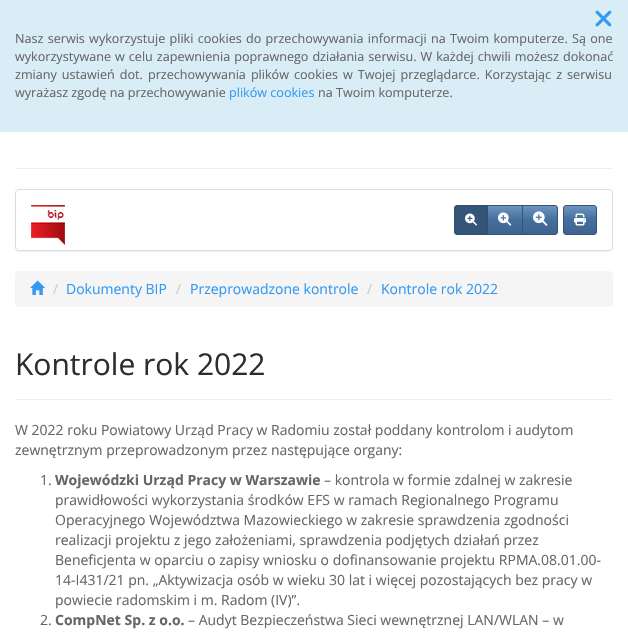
void draw(SkCanvas* canvas) {
	SkPaint fill;
	fill.setAntiAlias(true);
	auto makeFont = [&](const char* family, int weight, float size, bool italic = false) {
		SkFontStyle style(weight, SkFontStyle::kNormal_Width,
			italic ? SkFontStyle::kItalic_Slant : SkFontStyle::kUpright_Slant);
		SkFont result(fontMgr->matchFamilyStyle(family, style), size);
		result.setSubpixel(true);
		return result;
	};
	auto text = [&](const char* s, float x, float y, const SkFont& font) {
		canvas->drawString(s, x, y, font, fill);
	};
	auto spacedText = [&](const char* s, float x, float y, const SkFont& font, const SkPaint& ink, float letter, float word) {
		std::vector<SkGlyphID> glyphs(font.countText(s, strlen(s), SkTextEncoding::kUTF8));
		std::vector<float> xs(glyphs.size());
		font.textToGlyphs(s, strlen(s), SkTextEncoding::kUTF8, glyphs);
		font.getXPos(glyphs, xs, x);
		float extra = 0;
		for (size_t i = 0; i < glyphs.size(); i++) {
			xs[i] += extra;
			extra += letter + word * (glyphs[i] == font.unicharToGlyph(' '));
		}
		canvas->drawTextBlob(SkTextBlob::MakeFromPosHGlyphs(glyphs, xs, y, font), 0, 0, ink);
	};
	auto box = [&](float l, float t, float r, float b) {
		canvas->drawRect(SkRect::MakeLTRB(l, t, r, b), fill);
	};
	auto roundBox = [&](float l, float t, float r, float b, float radius) {
		canvas->drawRoundRect(SkRect::MakeLTRB(l, t, r, b), radius, radius, fill);
	};
	auto picture = [&](const char* path, float l, float t, float r, float b) {
		auto image = SkImages::DeferredFromEncodedData(SkData::MakeFromFileName(path));
		canvas->drawImageRect(image, SkRect::MakeLTRB(l, t, r, b), SkSamplingOptions());
	};
	canvas->clear(0xFFFFFFFF);
	fill.setColor(0xFFD9EDF7);
	box(0, 0, 628, 132);
	picture("image0.png", 595, 10, 612, 27);
	fill.setColor(0xFFEEEEEE);
	box(15, 168, 613, 169);
	fill.setColor(0x0D000000);
	fill.setMaskFilter(SkMaskFilter::MakeBlur(kNormal_SkBlurStyle, 0.5f));
	canvas->drawRoundRect(SkRect::MakeLTRB(15, 190, 613, 252), 4, 4, fill);
	fill.setMaskFilter(nullptr);
	fill.setColor(0xFFFFFFFF);
	canvas->drawRoundRect(SkRect::MakeLTRB(15.5f, 189.5f, 612.5f, 250.5f), 3.5f, 3.5f, fill);
	fill.setStyle(SkPaint::kStroke_Style);
	fill.setStrokeWidth(1);
	fill.setColor(0xFFDDDDDD);
	canvas->drawRoundRect(SkRect::MakeLTRB(15.5f, 189.5f, 612.5f, 250.5f), 3.5f, 3.5f, fill);
	picture("image1.png", 31, 205, 65, 245);
	fill.setStyle(SkPaint::kFill_Style);
	{
		const SkColor colors[] = {0xFF6D94BF, 0xFF446E9B, 0xFF3E648D};
		const float stops[] = {0, 0.5f, 1};
		const SkPoint ends[] = {{505, 206}, {505, 234}};
		fill.setShader(SkGradientShader::MakeLinear(ends, colors, stops, 3, SkTileMode::kClamp));
		fill.setAlpha(255);
	}
	box(488, 206, 522, 234);
	fill.setStyle(SkPaint::kStroke_Style);
	fill.setShader(nullptr);
	fill.setColor(0xFF345578);
	canvas->drawRect(SkRect::MakeLTRB(487.5f, 205.5f, 522.5f, 234.5f), fill);
	fill.setStyle(SkPaint::kFill_Style);
	canvas->drawPath(SkPathBuilder().moveTo(457, 205.5f).lineTo(487.5f, 205.5f).lineTo(487.5f, 234.5f).lineTo(457, 234.5f).cubicTo(455.5f, 234.5f, 454.5f, 233.5f, 454.5f, 232).lineTo(454.5f, 208).cubicTo(454.5f, 206.5f, 455.5f, 205.5f, 457, 205.5f).close().detach(), fill);
	fill.setStyle(SkPaint::kStroke_Style);
	fill.setColor(0xFF315070);
	canvas->drawPath(SkPathBuilder().moveTo(457, 205.5f).lineTo(487.5f, 205.5f).lineTo(487.5f, 234.5f).lineTo(457, 234.5f).cubicTo(455.5f, 234.5f, 454.5f, 233.5f, 454.5f, 232).lineTo(454.5f, 208).cubicTo(454.5f, 206.5f, 455.5f, 205.5f, 457, 205.5f).close().detach(), fill);
	picture("image2.png", 465, 213, 477, 226);
	picture("image3.png", 498, 212, 512, 226);
	fill.setStyle(SkPaint::kFill_Style);
	{
		const SkColor colors[] = {0xFF6D94BF, 0xFF446E9B, 0xFF3E648D};
		const float stops[] = {0, 0.5f, 1};
		const SkPoint ends[] = {{540, 206}, {540, 234}};
		fill.setShader(SkGradientShader::MakeLinear(ends, colors, stops, 3, SkTileMode::kClamp));
		fill.setAlpha(255);
	}
	box(523, 206, 557, 234);
	fill.setStyle(SkPaint::kStroke_Style);
	fill.setShader(nullptr);
	fill.setColor(0xFF345578);
	canvas->drawPath(SkPathBuilder().moveTo(522.5f, 205.5f).lineTo(555, 205.5f).cubicTo(556.5f, 205.5f, 557.5f, 206.5f, 557.5f, 208).lineTo(557.5f, 232).cubicTo(557.5f, 233.5f, 556.5f, 234.5f, 555, 234.5f).lineTo(522.5f, 234.5f).close().detach(), fill);
	picture("image4.png", 533, 211, 548, 226);
	fill.setStyle(SkPaint::kFill_Style);
	{
		const SkColor colors[] = {0xFF6D94BF, 0xFF446E9B, 0xFF3E648D};
		const float stops[] = {0, 0.5f, 1};
		const SkPoint ends[] = {{580, 206}, {580, 234}};
		fill.setShader(SkGradientShader::MakeLinear(ends, colors, stops, 3, SkTileMode::kClamp));
		fill.setAlpha(255);
	}
	box(564, 206, 596, 234);
	fill.setStyle(SkPaint::kStroke_Style);
	fill.setShader(nullptr);
	fill.setColor(0xFF345578);
	canvas->drawRoundRect(SkRect::MakeLTRB(563.5f, 205.5f, 596.5f, 234.5f), 2.5f, 2.5f, fill);
	picture("image5.png", 574, 213, 586, 226);
	fill.setStyle(SkPaint::kFill_Style);
	fill.setColor(0xFFF5F5F5);
	roundBox(15, 271, 613, 307, 4);
	picture("image6.png", 30, 280, 45, 295);
	fill.setColor(0xFFEEEEEE);
	box(15, 399, 613, 400);
	auto font1 = makeFont("Open Sans", 400, 12.6f);
	fill.setColor(0xFF666666);
	spacedText("Nasz serwis wykorzystuje pliki cookies do przechowywania informacji na Twoim komputerze. Są one", 15, 43, font1, fill, 0, 1);
	spacedText("wykorzystywane w celu zapewnienia poprawnego działania serwisu. W każdej chwili możesz dokonać", 15, 61, font1, fill, 0, 0.75f);
	spacedText("zmiany ustawień dot. przechowywania plików cookies w Twojej przeglądarce. Korzystając z serwisu", 15, 79, font1, fill, 0, 1.75f);
	text("wyrażasz zgodę na przechowywanie", 15, 97, font1);
	fill.setColor(0xFF3399F3);
	text("plików cookies", 229, 97, font1);
	fill.setColor(0xFF666666);
	text("na Twoim komputerze.", 318, 97, font1);
	auto font2 = makeFont("Open Sans", 400, 14);
	fill.setColor(0xFFCCCCCC);
	text("/", 53, 294, font2);
	fill.setColor(0xFF3399F3);
	text("Dokumenty BIP", 66, 294, font2);
	fill.setColor(0xFFCCCCCC);
	text("/", 176, 294, font2);
	fill.setColor(0xFF3399F3);
	text("Przeprowadzone kontrole", 190, 294, font2);
	fill.setColor(0xFFCCCCCC);
	text("/", 367, 294, font2);
	fill.setColor(0xFF3399F3);
	text("Kontrole rok 2022", 381, 294, font2);
	auto font3 = makeFont("Open Sans", 400, 30);
	fill.setColor(0xFF2D2D2D);
	text("Kontrole rok 2022", 15, 375, font3);
	fill.setColor(0xFF666666);
	text("W 2022 roku Powiatowy Urząd Pracy w Radomiu został poddany kontrolom i audytom", 15, 435, font2);
	text("zewnętrznym przeprowadzonym przez następujące organy:", 15, 455, font2);
	text("1.", 40, 485, font2);
	auto font4 = makeFont("Open Sans", 700, 14);
	text("Wojewódzki Urząd Pracy w Warszawie", 55, 485, font4);
	text("– kontrola w formie zdalnej w zakresie", 324, 485, font2);
	text("prawidłowości wykorzystania środków EFS w ramach Regionalnego Programu", 55, 505, font2);
	text("Operacyjnego Województwa Mazowieckiego w zakresie sprawdzenia zgodności", 55, 525, font2);
	text("realizacji projektu z jego założeniami, sprawdzenia podjętych działań przez", 55, 545, font2);
	text("Beneficjenta w oparciu o zapisy wniosku o dofinansowanie projektu RPMA.08.01.00-", 55, 565, font2);
	text("14-I431/21 pn. „Aktywizacja osób w wieku 30 lat i więcej pozostających bez pracy w", 55, 585, font2);
	text("powiecie radomskim i m. Radom (IV)”.", 55, 605, font2);
	text("2.", 40, 625, font2);
	text("CompNet Sp. z o.o.", 55, 625, font4);
	text("– Audyt Bezpieczeństwa Sieci wewnętrznej LAN/WLAN – w", 188, 625, font2);
}
